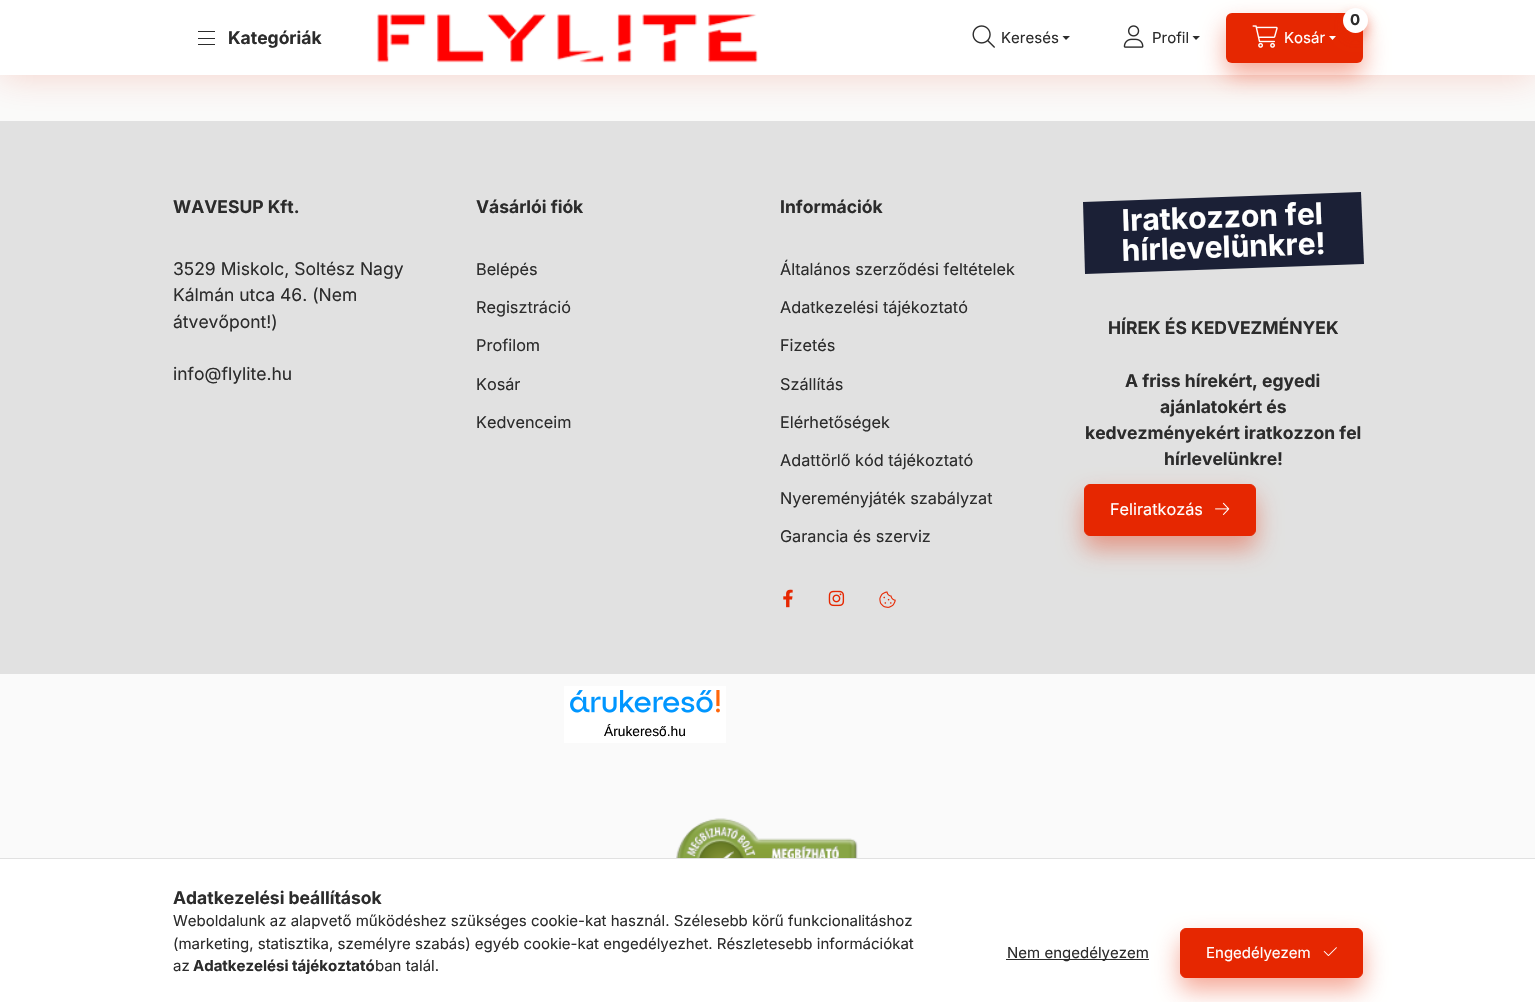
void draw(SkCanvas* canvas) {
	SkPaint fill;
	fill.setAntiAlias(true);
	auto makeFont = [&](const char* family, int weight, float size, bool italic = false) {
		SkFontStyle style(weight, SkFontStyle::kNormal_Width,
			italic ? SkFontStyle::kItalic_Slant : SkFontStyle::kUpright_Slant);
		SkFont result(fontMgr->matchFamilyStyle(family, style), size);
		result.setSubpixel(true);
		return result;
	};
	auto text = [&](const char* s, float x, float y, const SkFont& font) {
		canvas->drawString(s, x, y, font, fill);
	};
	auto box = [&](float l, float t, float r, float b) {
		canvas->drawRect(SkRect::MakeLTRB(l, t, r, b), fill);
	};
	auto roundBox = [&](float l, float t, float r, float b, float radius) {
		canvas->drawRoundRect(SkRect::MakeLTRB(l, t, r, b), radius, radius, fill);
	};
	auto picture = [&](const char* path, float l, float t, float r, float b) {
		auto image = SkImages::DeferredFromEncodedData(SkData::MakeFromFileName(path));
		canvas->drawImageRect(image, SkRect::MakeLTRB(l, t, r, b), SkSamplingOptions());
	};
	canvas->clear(0xFFFAFAFA);
	fill.setColor(0xFFE1E1E1);
	box(0, 121, 1535, 674);
	fill.setColor(0x33E62701);
	fill.setMaskFilter(SkMaskFilter::MakeBlur(kNormal_SkBlurStyle, 19));
	canvas->drawRect(SkRect::MakeLTRB(0, 0, 1535, 75), fill);
	fill.setMaskFilter(nullptr);
	fill.setColor(0xFFFFFFFF);
	box(0, 0, 1535, 75);
	fill.setColor(0xFF2C2C2C);
	box(198, 31, 215, 32);
	box(198, 38, 215, 39);
	box(198, 44, 215, 45);
	picture("image0.png", 377, 14, 758, 63);
	picture("image1.png", 972, 25, 995, 48);
	canvas->drawPath(SkPathBuilder().moveTo(1062.5f, 36).lineTo(1070, 36).lineTo(1066, 40).close().detach(), fill);
	picture("image2.png", 1123, 25, 1144, 48);
	fill.setColor(0x66E62701);
	fill.setMaskFilter(SkMaskFilter::MakeBlur(kNormal_SkBlurStyle, 12.5f));
	canvas->drawRoundRect(SkRect::MakeLTRB(1226, 25, 1363, 75), 6, 6, fill);
	fill.setMaskFilter(nullptr);
	fill.setColor(0xFF2C2C2C);
	canvas->drawPath(SkPathBuilder().moveTo(1192.5f, 36).lineTo(1200, 36).lineTo(1196, 40).close().detach(), fill);
	fill.setColor(0xFFE62701);
	roundBox(1226, 13, 1363, 63, 6);
	fill.setColor(0x66E62701);
	fill.setMaskFilter(SkMaskFilter::MakeBlur(kNormal_SkBlurStyle, 6));
	canvas->drawRoundRect(SkRect::MakeLTRB(1343, 14, 1368, 39), 12.5f, 12.5f, fill);
	fill.setMaskFilter(nullptr);
	fill.setColor(0xFFFFFFFF);
	canvas->drawCircle(1355.5f, 20.5f, 12.5f, fill);
	picture("image3.png", 1252, 25, 1278, 48);
	canvas->drawPath(SkPathBuilder().moveTo(1329, 36).lineTo(1336, 36).lineTo(1332.5f, 40).close().detach(), fill);
	picture("image4.png", 783, 589, 793, 608);
	picture("image5.png", 828, 590, 845, 607);
	picture("image6.png", 879, 591, 896, 608);
	fill.setColor(0xFF1B2036);
	canvas->drawPath(SkPathBuilder().moveTo(1083, 202).lineTo(1361, 192).lineTo(1364, 264).lineTo(1085, 274).close().detach(), fill);
	fill.setColor(0x66E62701);
	fill.setMaskFilter(SkMaskFilter::MakeBlur(kNormal_SkBlurStyle, 12.5f));
	canvas->drawRoundRect(SkRect::MakeLTRB(1084, 496, 1256, 549), 6, 6, fill);
	fill.setMaskFilter(nullptr);
	fill.setColor(0xFFE62701);
	canvas->drawRoundRect(SkRect::MakeLTRB(1084.5f, 484.5f, 1255.5f, 535.5f), 5.5f, 5.5f, fill);
	fill.setStyle(SkPaint::kStroke_Style);
	fill.setStrokeWidth(1);
	canvas->drawRoundRect(SkRect::MakeLTRB(1084.5f, 484.5f, 1255.5f, 535.5f), 5.5f, 5.5f, fill);
	picture("image7.png", 1215, 502, 1230, 515);
	fill.setStyle(SkPaint::kFill_Style);
	fill.setColor(0xFFFFFFFF);
	box(564, 686, 726, 743);
	picture("image8.png", 570, 690, 720, 713);
	picture("image9.png", 676, 818, 858, 858);
	box(0, 859, 1535, 1002);
	fill.setColor(0xFFE1E1E1);
	box(0, 858, 1535, 859);
	fill.setColor(0xFF2C2C2C);
	box(1006, 959, 1149, 960);
	fill.setColor(0x66E62701);
	fill.setMaskFilter(SkMaskFilter::MakeBlur(kNormal_SkBlurStyle, 12.5f));
	canvas->drawRoundRect(SkRect::MakeLTRB(1180, 940, 1363, 990), 6, 6, fill);
	fill.setMaskFilter(nullptr);
	fill.setColor(0xFFE62701);
	canvas->drawRoundRect(SkRect::MakeLTRB(1180.5f, 928.5f, 1362.5f, 977.5f), 5.5f, 5.5f, fill);
	fill.setStyle(SkPaint::kStroke_Style);
	canvas->drawRoundRect(SkRect::MakeLTRB(1180.5f, 928.5f, 1362.5f, 977.5f), 5.5f, 5.5f, fill);
	picture("image10.png", 1323, 947, 1337, 956);
	auto font1 = makeFont("Inter", 700, 17.5f);
	fill.setStyle(SkPaint::kFill_Style);
	fill.setColor(0xFF2C2C2C);
	text("Kategóriák", 228, 44, font1);
	auto font2 = makeFont("Inter", 400, 15);
	text("Keresés", 1001, 43, font2);
	text("Profil", 1152, 43, font2);
	auto font3 = makeFont("Inter", 700, 15);
	text("0", 1350, 25, font3);
	fill.setColor(0xFFFFFFFF);
	text("Kosár", 1284, 43, font2);
	fill.setColor(0xFF2C2C2C);
	text("WAVESUP Kft.", 173, 213, font1);
	auto font4 = makeFont("Inter", 400, 17.5f);
	text("3529 Miskolc, Soltész Nagy", 173, 275, font4);
	text("Kálmán utca 46. (Nem", 173, 301, font4);
	text("átvevőpont!)", 173, 328, font4);
	text("info@flylite.hu", 173, 380, font4);
	text("Vásárlói fiók", 476, 213, font1);
	auto font5 = makeFont("Inter", 400, 16.25f);
	text("Belépés", 476, 275, font5);
	text("Regisztráció", 476, 313, font5);
	text("Profilom", 476, 351, font5);
	text("Kosár", 476, 390, font5);
	text("Kedvenceim", 476, 428, font5);
	text("Információk", 780, 213, font1);
	text("Általános szerződési feltételek", 780, 275, font5);
	text("Adatkezelési tájékoztató", 780, 313, font5);
	text("Fizetés", 780, 351, font5);
	text("Szállítás", 780, 390, font5);
	text("Elérhetőségek", 780, 428, font5);
	text("Adattörlő kód tájékoztató", 780, 466, font5);
	text("Nyereményjáték szabályzat", 780, 504, font5);
	text("Garancia és szerviz", 780, 542, font5);
	auto font6 = makeFont("Inter", 700, 30);
	fill.setColor(0xFFFFFFFF);
	canvas->save();
	canvas->rotate(-2, 1122, 231);
	text("Iratkozzon fel", 1122, 231, font6);
	canvas->restore();
	canvas->save();
	canvas->rotate(-2, 1122, 261);
	text("hírlevelünkre!", 1122, 261, font6);
	canvas->restore();
	fill.setColor(0xFF2C2C2C);
	text("HÍREK ÉS KEDVEZMÉNYEK", 1108, 334, font1);
	text("A friss hírekért, egyedi", 1125, 387, font1);
	text("ajánlatokért és", 1160, 413, font1);
	text("kedvezményekért iratkozzon fel", 1085, 439, font1);
	text("hírlevelünkre!", 1164, 465, font1);
	fill.setColor(0xFFFFFFFF);
	text("Feliratkozás", 1110, 515, font5);
	auto font7 = makeFont("Liberation Sans", 400, 13.75f);
	fill.setColor(0xFF000000);
	text("Árukereső.hu", 604, 736, font7);
	fill.setColor(0xFF2C2C2C);
	text("Adatkezelési beállítások", 173, 904, font1);
	text("Weboldalunk az alapvető működéshez szükséges cookie-kat használ. Szélesebb körű funkcionalitáshoz", 173, 926, font2);
	text("(marketing, statisztika, személyre szabás) egyéb cookie-kat engedélyezhet. Részletesebb információkat", 173, 949, font2);
	text("az", 173, 971, font2);
	text("Adatkezelési tájékoztató", 193, 971, font3);
	text("ban talál.", 375, 971, font2);
	text("Nem engedélyezem", 1007, 958, font2);
	fill.setColor(0xFFFFFFFF);
	text("Engedélyezem", 1206, 958, font2);
}
